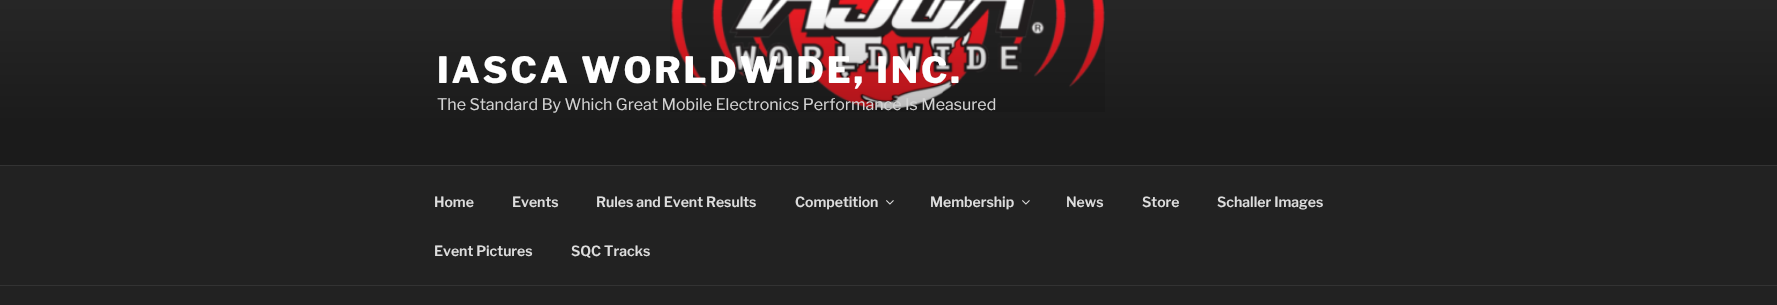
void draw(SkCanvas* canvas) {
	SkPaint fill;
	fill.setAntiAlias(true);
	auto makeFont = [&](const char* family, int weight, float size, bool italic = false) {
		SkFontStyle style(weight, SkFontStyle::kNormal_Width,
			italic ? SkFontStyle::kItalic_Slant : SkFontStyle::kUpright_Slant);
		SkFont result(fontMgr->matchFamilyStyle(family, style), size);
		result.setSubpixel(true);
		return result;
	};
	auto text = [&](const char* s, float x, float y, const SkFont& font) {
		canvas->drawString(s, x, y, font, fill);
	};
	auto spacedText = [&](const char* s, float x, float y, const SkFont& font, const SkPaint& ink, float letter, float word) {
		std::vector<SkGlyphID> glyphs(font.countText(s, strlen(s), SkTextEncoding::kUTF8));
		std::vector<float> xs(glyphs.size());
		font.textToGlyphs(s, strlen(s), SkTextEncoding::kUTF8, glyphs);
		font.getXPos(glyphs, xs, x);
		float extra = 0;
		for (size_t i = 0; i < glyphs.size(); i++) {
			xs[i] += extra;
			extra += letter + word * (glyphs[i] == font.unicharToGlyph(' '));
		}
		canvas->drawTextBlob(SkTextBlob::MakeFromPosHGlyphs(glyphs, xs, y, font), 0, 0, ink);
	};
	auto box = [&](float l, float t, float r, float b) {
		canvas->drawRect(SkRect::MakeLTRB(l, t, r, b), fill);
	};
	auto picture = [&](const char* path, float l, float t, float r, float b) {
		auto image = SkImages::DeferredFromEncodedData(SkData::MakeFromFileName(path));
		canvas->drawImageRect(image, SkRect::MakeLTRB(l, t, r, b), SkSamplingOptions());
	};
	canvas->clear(0xFF222222);
	fill.setColor(0xFF262626);
	box(0, 0, 1777, 165);
	picture("image0.png", 670, 0, 1105, 112);
	{
		const SkColor colors[] = {0x00000000, 0x4D000000, 0x4D000000};
		const float stops[] = {0, 0.75f, 1};
		const SkPoint ends[] = {{889, 0}, {889, 165}};
		fill.setShader(SkGradientShader::MakeLinear(ends, colors, stops, 3, SkTileMode::kClamp));
		fill.setAlpha(255);
	}
	box(0, 9, 1777, 165);
	fill.setShader(nullptr);
	fill.setColor(0xFF333333);
	box(0, 165, 1777, 166);
	box(0, 285, 1777, 286);
	picture("image1.png", 886, 200, 894, 205);
	picture("image1.png", 1022, 200, 1030, 205);
	auto font1 = makeFont("Libre Franklin", 100, 36);
	fill.setColor(0xFFFFFFFF);
	spacedText("IASCA WORLDWIDE, INC.", 437, 83, font1, fill, 2.9f, 0);
	auto font2 = makeFont("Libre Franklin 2", 100, 16);
	fill.setColor(0xFFD3D3D3);
	text("The Standard By Which Great Mobile Electronics Performance Is Measured", 437, 110, font2);
	auto font3 = makeFont("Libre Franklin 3", 100, 14);
	fill.setColor(0xFFDDDDDD);
	text("Home", 434, 207, font3);
	text("Events", 512, 207, font3);
	text("Rules and Event Results", 596, 207, font3);
	text("Competition", 795, 207, font3);
	text("Membership", 930, 207, font3);
	text("News", 1066, 207, font3);
	text("Store", 1142, 207, font3);
	text("Schaller Images", 1217, 207, font3);
	text("Event Pictures", 434, 256, font3);
	text("SQC Tracks", 571, 256, font3);
}
